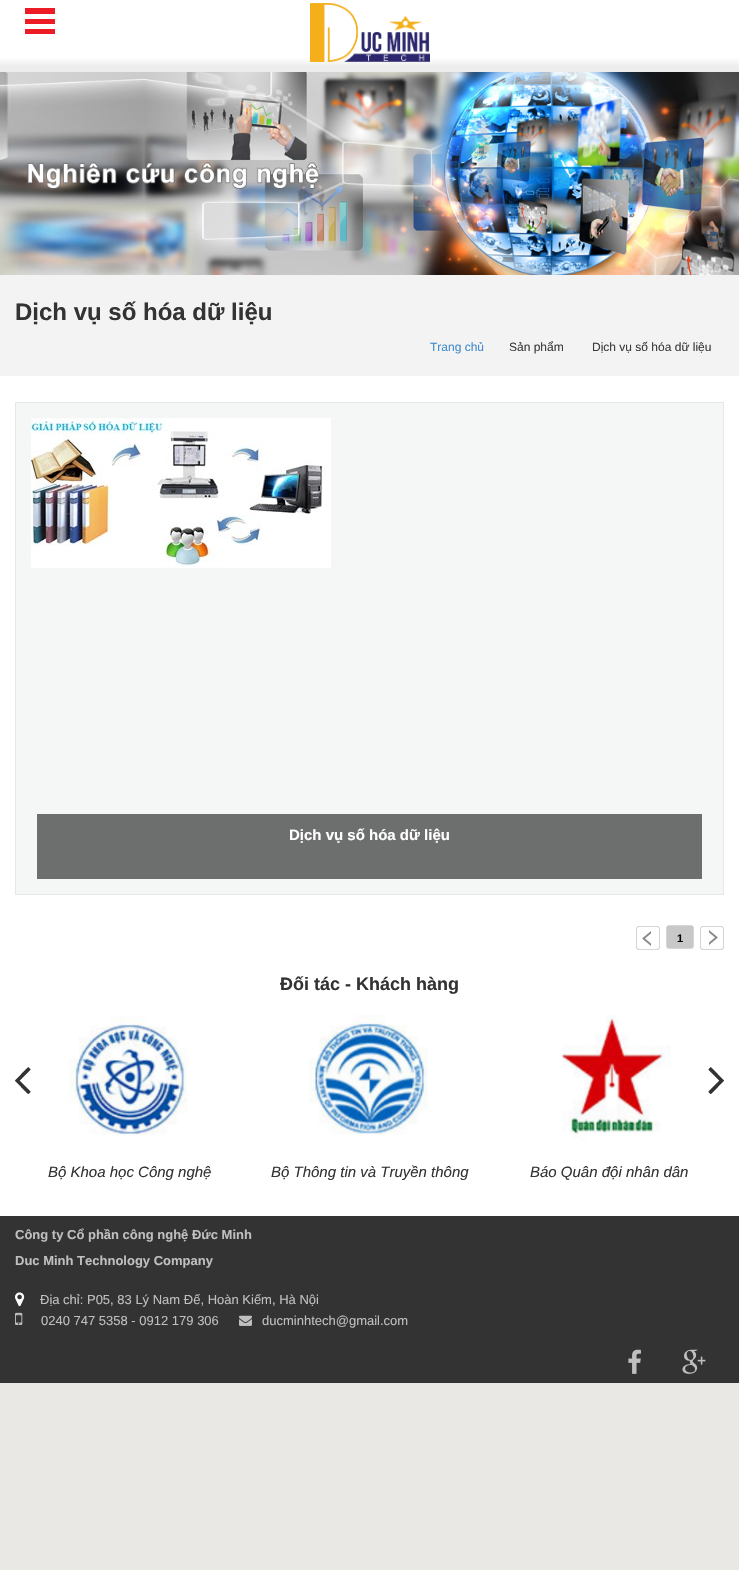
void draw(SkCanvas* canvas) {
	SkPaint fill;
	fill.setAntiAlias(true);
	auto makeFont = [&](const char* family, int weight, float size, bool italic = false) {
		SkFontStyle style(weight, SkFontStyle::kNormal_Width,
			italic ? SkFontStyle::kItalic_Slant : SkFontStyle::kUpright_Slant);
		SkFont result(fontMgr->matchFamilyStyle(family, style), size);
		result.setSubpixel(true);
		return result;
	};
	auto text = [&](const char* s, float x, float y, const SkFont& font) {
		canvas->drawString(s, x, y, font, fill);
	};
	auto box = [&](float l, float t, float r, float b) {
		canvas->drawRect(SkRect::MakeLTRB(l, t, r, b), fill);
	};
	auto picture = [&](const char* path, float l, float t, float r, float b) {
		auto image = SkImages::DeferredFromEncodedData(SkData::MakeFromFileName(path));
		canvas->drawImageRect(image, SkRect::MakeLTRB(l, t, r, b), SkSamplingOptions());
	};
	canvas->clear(0xFFEAE8E4);
	fill.setColor(0xFFFFFFFF);
	box(0, 376, 739, 1216);
	{
		const SkColor colors[] = {0xFFFFFFFF, 0xFFFFFFFF, 0xFFEDEDED, 0xFFEDEDED};
		const float stops[] = {0, 0.8f, 0.92f, 1};
		const SkPoint ends[] = {{370, 0}, {370, 72}};
		fill.setShader(SkGradientShader::MakeLinear(ends, colors, stops, 4, SkTileMode::kClamp));
		fill.setAlpha(255);
	}
	box(0, 0, 739, 72);
	fill.setShader(nullptr);
	fill.setColor(0xFFED1C24);
	box(25, 29, 55, 34);
	box(25, 19, 55, 24);
	box(25, 8, 55, 14);
	picture("image0.png", 310, 3, 430, 62);
	picture("image1.png", 0, 72, 739, 275);
	fill.setColor(0xFFF3F3F3);
	box(0, 275, 739, 376);
	fill.setColor(0xFFF5F6F6);
	canvas->drawRect(SkRect::MakeLTRB(15.5f, 402.5f, 723.5f, 894.5f), fill);
	fill.setStyle(SkPaint::kStroke_Style);
	fill.setStrokeWidth(1);
	fill.setColor(0xFFE6E7E8);
	canvas->drawRect(SkRect::MakeLTRB(15.5f, 402.5f, 723.5f, 894.5f), fill);
	picture("image2.png", 31, 418, 331, 568);
	fill.setStyle(SkPaint::kFill_Style);
	fill.setColor(0xFF6D6E6E);
	box(37, 814, 702, 879);
	picture("image3.png", 636, 926, 660, 950);
	fill.setColor(0xFFC8C8C8);
	canvas->drawRoundRect(SkRect::MakeLTRB(666.5f, 925.5f, 693.5f, 948.5f), 2.5f, 2.5f, fill);
	fill.setStyle(SkPaint::kStroke_Style);
	fill.setColor(0xFFD6D6D6);
	canvas->drawRoundRect(SkRect::MakeLTRB(666.5f, 925.5f, 693.5f, 948.5f), 2.5f, 2.5f, fill);
	picture("image4.png", 700, 926, 724, 950);
	picture("image5.png", 15, 1067, 31, 1094);
	picture("image6.png", 708, 1067, 724, 1094);
	picture("image7.png", 68, 1016, 188, 1136);
	picture("image8.png", 309, 1015, 428, 1135);
	picture("image9.png", 561, 1015, 671, 1141);
	fill.setStyle(SkPaint::kFill_Style);
	fill.setColor(0xFF333333);
	box(0, 1216, 739, 1383);
	picture("image10.png", 15, 1292, 25, 1307);
	picture("image11.png", 15, 1312, 23, 1325);
	picture("image12.png", 239, 1315, 252, 1326);
	picture("image13.png", 628, 1349, 641, 1374);
	picture("image14.png", 682, 1349, 706, 1374);
	auto font1 = makeFont("Liberation Sans", 700, 24);
	text("Dịch vụ số hóa dữ liệu", 15, 320, font1);
	auto font2 = makeFont("Liberation Sans", 400, 12);
	fill.setColor(0xFF428BCA);
	text("Trang chủ", 430, 351, font2);
	fill.setColor(0xFF3B3B3B);
	text("Sản phẩm", 509, 351, font2);
	text("Dịch vụ số hóa dữ liệu", 592, 351, font2);
	auto font3 = makeFont("Liberation Sans", 700, 15);
	fill.setColor(0xFFFFFFFF);
	text("Dịch vụ số hóa dữ liệu", 289, 840, font3);
	auto font4 = makeFont("Liberation Sans", 700, 11);
	fill.setColor(0xFF000000);
	text("1", 677, 942, font4);
	auto font5 = makeFont("Liberation Sans", 700, 18);
	fill.setColor(0xFF333333);
	text("Đối tác - Khách hàng", 280, 990, font5);
	auto font6 = makeFont("Liberation Sans", 400, 15, true);
	text("Bộ Khoa học Công nghệ", 48, 1177, font6);
	text("Bộ Thông tin và Truyền thông", 271, 1177, font6);
	text("Báo Quân đội nhân dân", 530, 1177, font6);
	auto font7 = makeFont("Liberation Sans", 700, 13);
	fill.setColor(0xFFBFBFBF);
	text("Công ty Cổ phần công nghệ Đức Minh", 15, 1239, font7);
	text("Duc Minh Technology Company", 15, 1265, font7);
	auto font8 = makeFont("Liberation Sans", 400, 13);
	text("Địa chỉ: P05, 83 Lý Nam Đế, Hoàn Kiếm, Hà Nội", 40, 1304, font8);
	text("0240 747 5358 - 0912 179 306", 41, 1325, font8);
	text("ducminhtech@gmail.com", 262, 1325, font8);
}
